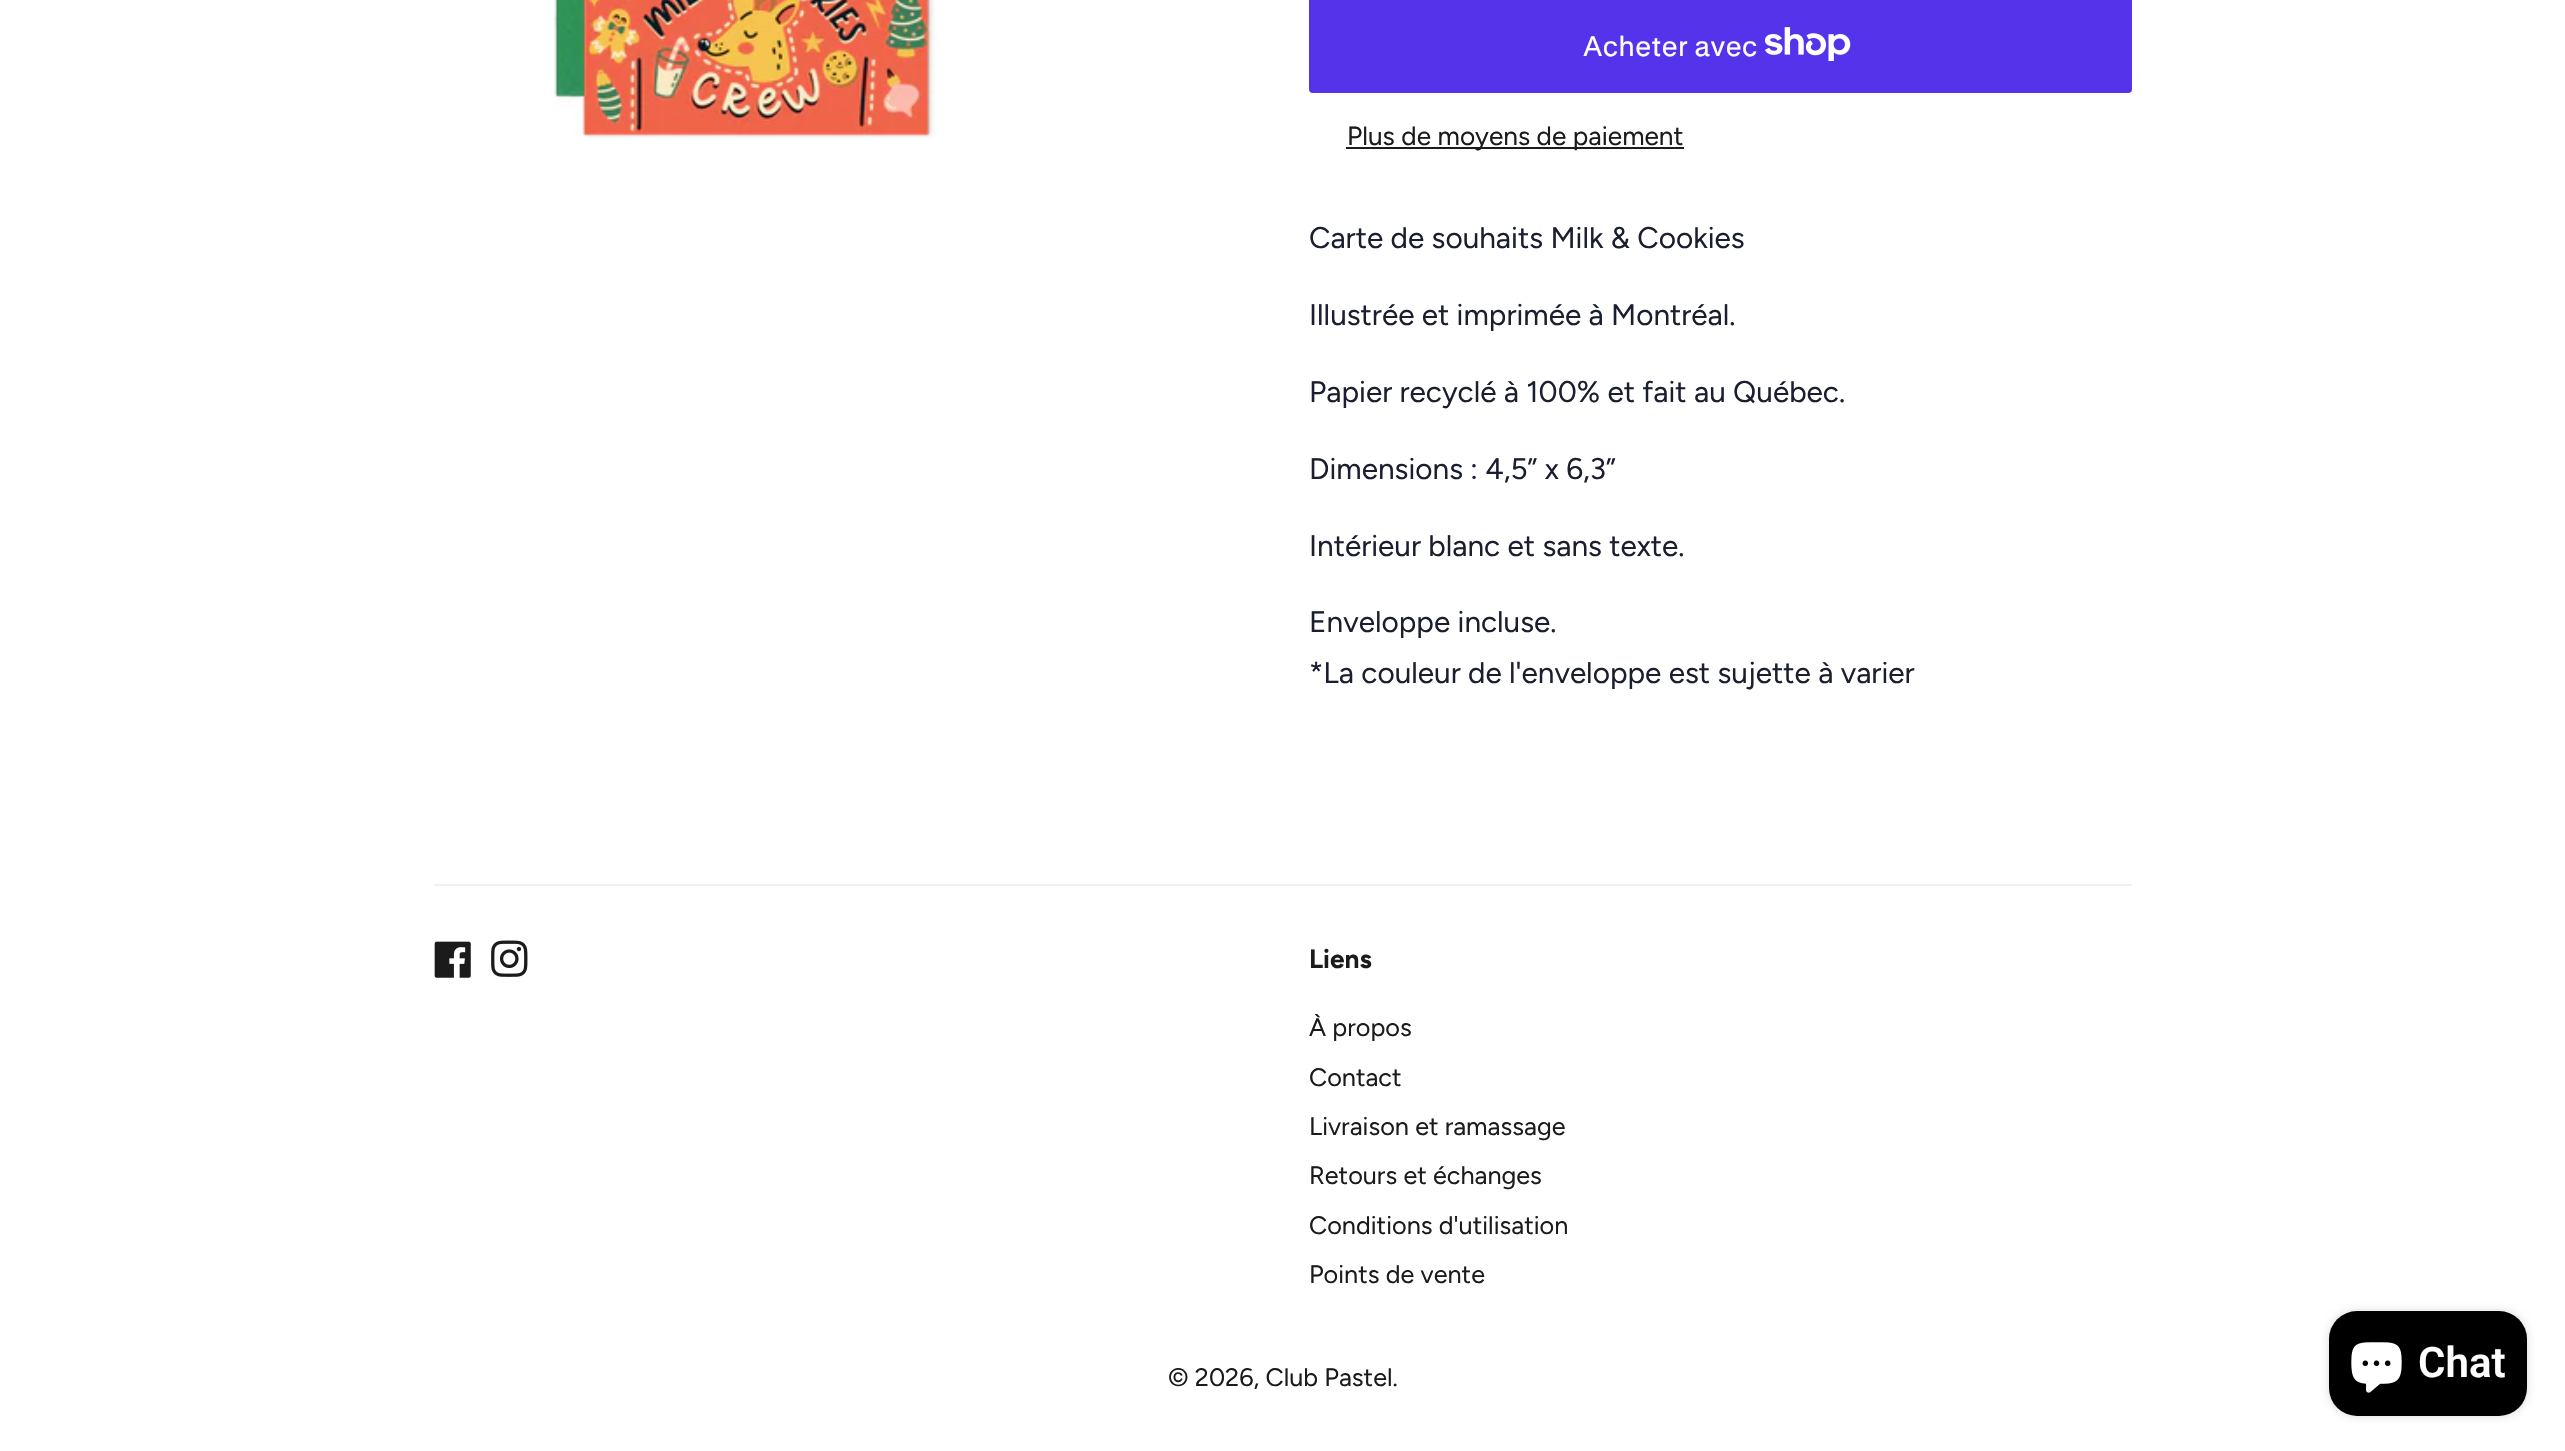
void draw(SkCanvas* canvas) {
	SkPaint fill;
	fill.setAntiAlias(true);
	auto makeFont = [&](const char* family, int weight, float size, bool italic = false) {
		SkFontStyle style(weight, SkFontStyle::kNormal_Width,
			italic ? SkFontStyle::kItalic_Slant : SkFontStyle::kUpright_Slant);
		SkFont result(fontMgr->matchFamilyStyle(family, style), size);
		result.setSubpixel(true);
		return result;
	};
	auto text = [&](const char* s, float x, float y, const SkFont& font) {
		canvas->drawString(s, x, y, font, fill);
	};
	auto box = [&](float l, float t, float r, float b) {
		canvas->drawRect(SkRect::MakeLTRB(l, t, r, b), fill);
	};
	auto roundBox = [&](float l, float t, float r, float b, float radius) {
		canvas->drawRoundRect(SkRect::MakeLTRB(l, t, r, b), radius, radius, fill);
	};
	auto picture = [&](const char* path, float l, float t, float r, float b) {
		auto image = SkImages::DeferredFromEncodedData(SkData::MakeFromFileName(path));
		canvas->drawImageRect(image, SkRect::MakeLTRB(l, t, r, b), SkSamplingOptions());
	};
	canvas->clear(0xFFFFFFFF);
	picture("image0.png", 554, 0, 938, 139);
	fill.setColor(0xFF5433EB);
	roundBox(1309, -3, 2132, 93, 4);
	picture("image1.png", 1765, 27, 1851, 61);
	fill.setColor(0xFF1C1B1B);
	box(1346, 147, 1684, 149);
	fill.setColor(0xFFF0F0F0);
	box(434, 884, 2132, 886);
	picture("image2.png", 434, 941, 471, 978);
	picture("image3.png", 491, 940, 528, 977);
	fill.setColor(0x26000000);
	fill.setMaskFilter(SkMaskFilter::MakeBlur(kNormal_SkBlurStyle, 4.5f));
	canvas->drawRoundRect(SkRect::MakeLTRB(2329, 1311, 2527, 1416), 28, 28, fill);
	fill.setMaskFilter(nullptr);
	fill.setColor(0xFF000000);
	roundBox(2329, 1311, 2527, 1416, 28);
	picture("image4.png", 2351, 1342, 2402, 1393);
	auto font1 = makeFont("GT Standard", 400, 28);
	fill.setColor(0xFFFFFFFF);
	text("Acheter avec", 1583, 56, font1);
	auto font2 = makeFont("Figtree", 400, 26.25f);
	fill.setColor(0xFF1C1B1B);
	text("Plus de moyens de paiement", 1347, 145, font2);
	auto font3 = makeFont("Figtree", 400, 29.75f);
	fill.setColor(0xFF1B1E2F);
	text("Carte de souhaits Milk & Cookies", 1309, 248, font3);
	text("Illustrée et imprimée à Montréal.", 1309, 325, font3);
	text("Papier recyclé à 100% et fait au Québec.", 1309, 402, font3);
	text("Dimensions : 4,5” x 6,3”", 1309, 479, font3);
	text("Intérieur blanc et sans texte.", 1309, 556, font3);
	text("Enveloppe incluse.", 1309, 632, font3);
	text("*La couleur de l'enveloppe est sujette à varier", 1309, 683, font3);
	auto font4 = makeFont("Figtree", 700, 26.25f);
	fill.setColor(0xFF1C1B1B);
	text("Liens", 1309, 968, font4);
	auto font5 = makeFont("Figtree", 400, 25.25f);
	text("À propos", 1309, 1036, font5);
	text("Contact", 1309, 1086, font5);
	text("Livraison et ramassage", 1309, 1135, font5);
	text("Retours et échanges", 1309, 1184, font5);
	text("Conditions d'utilisation", 1309, 1234, font5);
	text("Points de vente", 1309, 1283, font5);
	text("© 2026, Club Pastel.", 1168, 1386, font5);
	auto font6 = makeFont("Roboto", 600, 42);
	fill.setColor(0xFFFFFFFF);
	text("Chat", 2418, 1377, font6);
}
